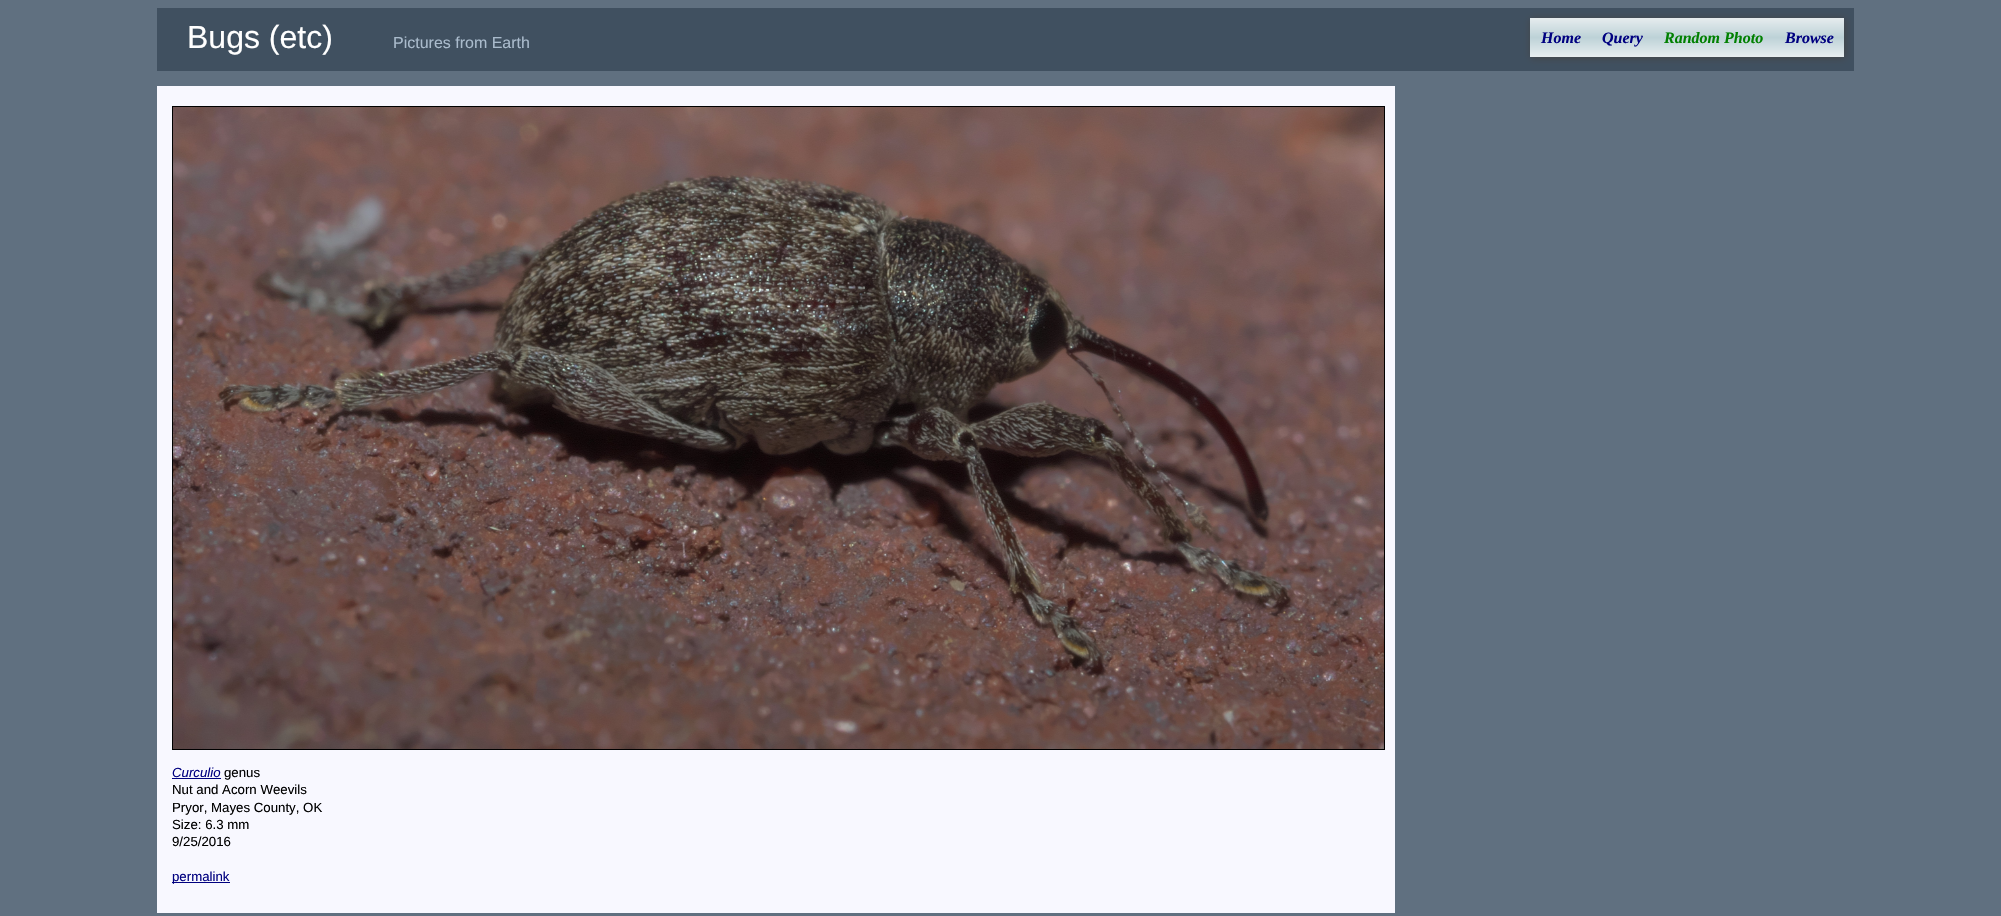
void draw(SkCanvas* canvas) {
	SkPaint fill;
	fill.setAntiAlias(true);
	auto makeFont = [&](const char* family, int weight, float size, bool italic = false) {
		SkFontStyle style(weight, SkFontStyle::kNormal_Width,
			italic ? SkFontStyle::kItalic_Slant : SkFontStyle::kUpright_Slant);
		SkFont result(fontMgr->matchFamilyStyle(family, style), size);
		result.setSubpixel(true);
		return result;
	};
	auto text = [&](const char* s, float x, float y, const SkFont& font) {
		canvas->drawString(s, x, y, font, fill);
	};
	auto box = [&](float l, float t, float r, float b) {
		canvas->drawRect(SkRect::MakeLTRB(l, t, r, b), fill);
	};
	auto picture = [&](const char* path, float l, float t, float r, float b) {
		auto image = SkImages::DeferredFromEncodedData(SkData::MakeFromFileName(path));
		canvas->drawImageRect(image, SkRect::MakeLTRB(l, t, r, b), SkSamplingOptions());
	};
	canvas->clear(0xFF607080);
	fill.setColor(0xFF405060);
	box(157, 8, 1854, 71);
	fill.setColor(0xFF444444);
	fill.setMaskFilter(SkMaskFilter::MakeBlur(kNormal_SkBlurStyle, 4));
	canvas->drawRect(SkRect::MakeLTRB(1531, 19, 1845, 58), fill);
	fill.setMaskFilter(nullptr);
	{
		const SkColor colors[] = {0xFFE6ECEE, 0xFFBDD2D7, 0xFFE8EEF0};
		const float stops[] = {0, 0.5f, 1};
		const SkPoint ends[] = {{1687, 18}, {1687, 57}};
		fill.setShader(SkGradientShader::MakeLinear(ends, colors, stops, 3, SkTileMode::kClamp));
		fill.setAlpha(255);
	}
	box(1530, 18, 1844, 57);
	fill.setShader(nullptr);
	fill.setColor(0xFFF8F8FF);
	box(157, 86, 1395, 913);
	fill.setStyle(SkPaint::kStroke_Style);
	fill.setStrokeWidth(1);
	fill.setColor(0xFF000000);
	canvas->drawRect(SkRect::MakeLTRB(172.5f, 106.5f, 1384.5f, 749.5f), fill);
	picture("image0.png", 173, 107, 1384, 749);
	fill.setStyle(SkPaint::kFill_Style);
	fill.setColor(0xFF000080);
	box(172, 778, 221, 779);
	box(172, 882, 230, 883);
	auto font1 = makeFont("Liberation Sans", 400, 32);
	fill.setColor(0xFFFFFFFF);
	text("Bugs (etc)", 187, 48, font1);
	auto font2 = makeFont("Liberation Sans", 400, 16);
	fill.setColor(0xFFAABBCC);
	text("Pictures from Earth", 393, 48, font2);
	auto font3 = makeFont("Liberation Serif", 700, 16, true);
	fill.setColor(0xFF000080);
	text("Home", 1541, 43, font3);
	text("Query", 1602, 43, font3);
	fill.setColor(0xFF008000);
	text("Random Photo", 1664, 43, font3);
	fill.setColor(0xFF000080);
	text("Browse", 1785, 43, font3);
	auto font4 = makeFont("Liberation Sans", 400, 13.25f, true);
	text("Curculio", 172, 777, font4);
	auto font5 = makeFont("Liberation Sans", 400, 13.25f);
	fill.setColor(0xFF000000);
	text("genus", 224, 777, font5);
	text("Nut and Acorn Weevils", 172, 794, font5);
	text("Pryor, Mayes County, OK", 172, 812, font5);
	text("Size: 6.3 mm", 172, 829, font5);
	text("9/25/2016", 172, 846, font5);
	fill.setColor(0xFF000080);
	text("permalink", 172, 881, font5);
}
